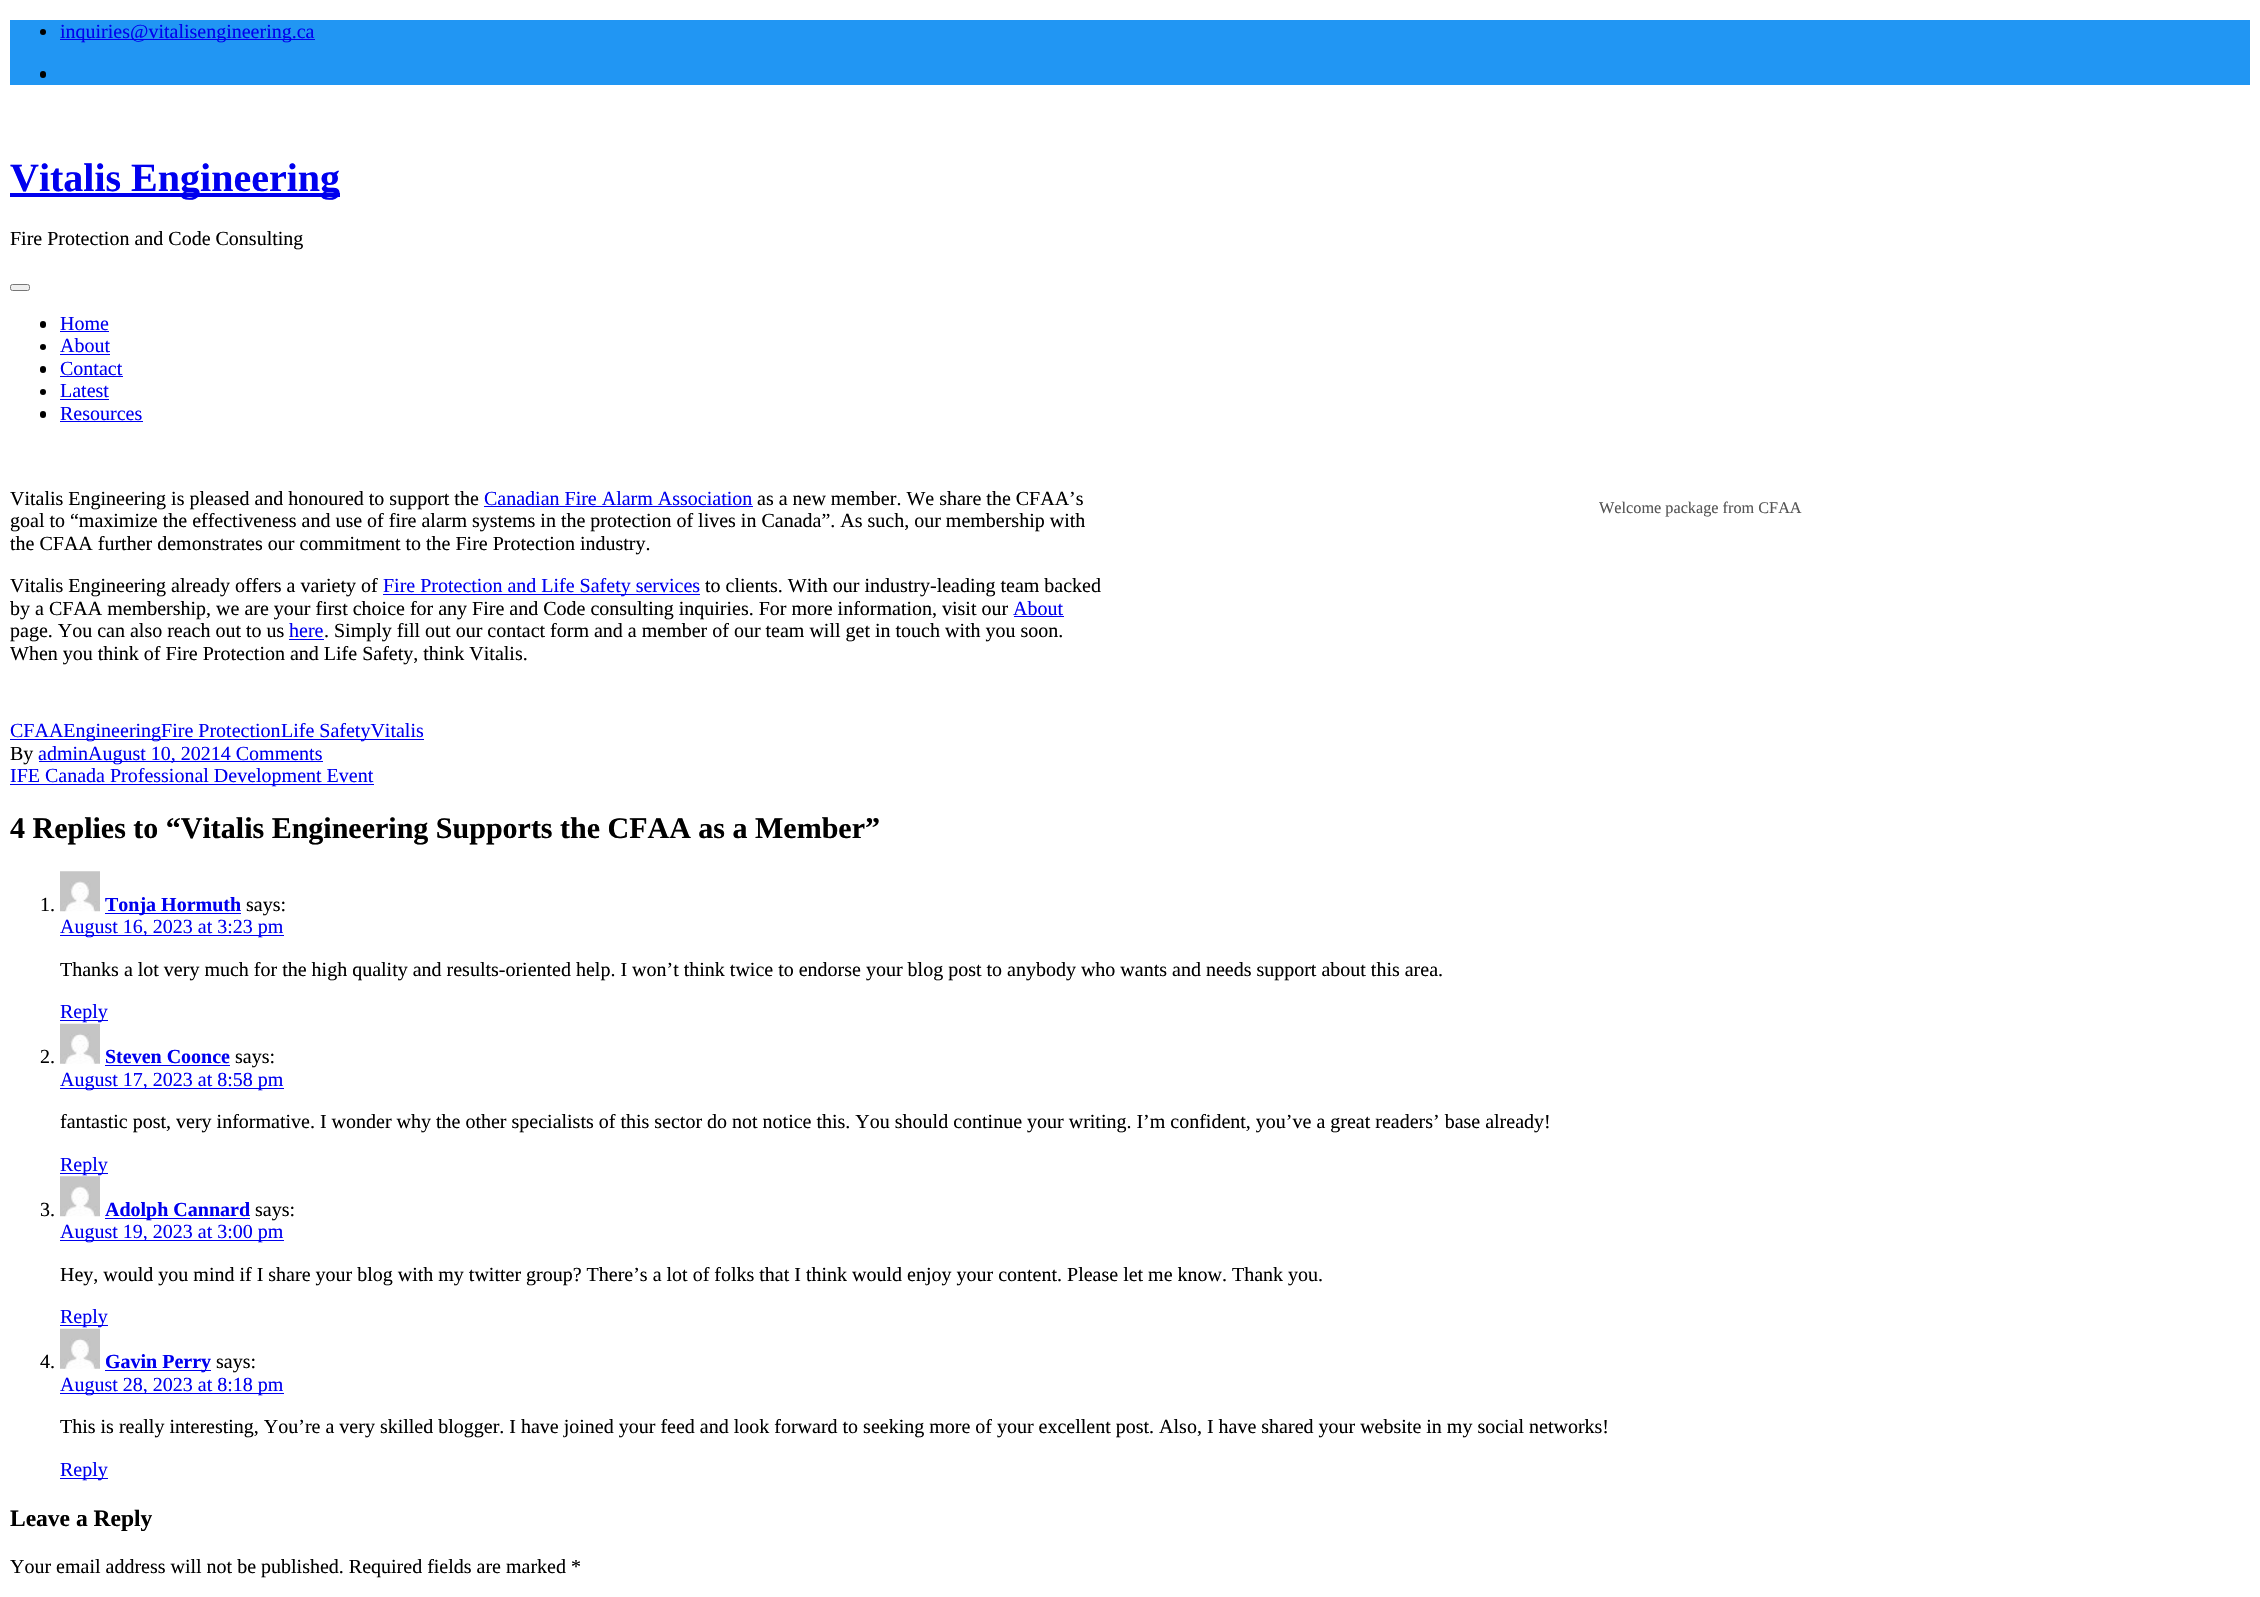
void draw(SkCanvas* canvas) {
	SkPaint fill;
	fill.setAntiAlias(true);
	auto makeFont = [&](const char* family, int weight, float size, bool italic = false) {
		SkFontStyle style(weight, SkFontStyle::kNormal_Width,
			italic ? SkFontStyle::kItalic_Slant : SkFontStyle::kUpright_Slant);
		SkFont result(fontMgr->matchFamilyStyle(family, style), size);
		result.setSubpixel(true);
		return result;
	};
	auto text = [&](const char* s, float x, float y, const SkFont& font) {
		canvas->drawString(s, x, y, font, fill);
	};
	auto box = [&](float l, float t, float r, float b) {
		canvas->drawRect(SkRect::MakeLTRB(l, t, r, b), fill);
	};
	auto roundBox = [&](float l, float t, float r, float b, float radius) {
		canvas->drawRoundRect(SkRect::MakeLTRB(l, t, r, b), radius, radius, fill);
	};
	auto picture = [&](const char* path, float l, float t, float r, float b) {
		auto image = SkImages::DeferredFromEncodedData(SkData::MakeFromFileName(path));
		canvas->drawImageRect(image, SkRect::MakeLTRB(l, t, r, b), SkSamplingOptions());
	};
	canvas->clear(0xFFFFFFFF);
	fill.setColor(0xFF2196F3);
	box(10, 20, 2250, 85);
	fill.setColor(0xFF000000);
	canvas->drawCircle(43, 32, 3, fill);
	fill.setColor(0xFF0000EE);
	box(60, 39, 315, 40);
	fill.setColor(0xFF000000);
	roundBox(40, 71, 46, 78, 3);
	fill.setColor(0xFF0000EE);
	box(10, 193, 340, 197);
	fill.setColor(0xFFEFEFEF);
	canvas->drawRoundRect(SkRect::MakeLTRB(10.5f, 284.5f, 29.5f, 290.5f), 2, 2, fill);
	fill.setStyle(SkPaint::kStroke_Style);
	fill.setStrokeWidth(1);
	fill.setColor(0xFF767676);
	canvas->drawRoundRect(SkRect::MakeLTRB(10.5f, 284.5f, 29.5f, 290.5f), 2, 2, fill);
	fill.setStyle(SkPaint::kFill_Style);
	fill.setColor(0xFF000000);
	roundBox(40, 321, 46, 328, 3);
	fill.setColor(0xFF0000EE);
	box(60, 331, 109, 332);
	fill.setColor(0xFF000000);
	canvas->drawCircle(43, 347, 3, fill);
	fill.setColor(0xFF0000EE);
	box(60, 354, 110, 355);
	fill.setColor(0xFF000000);
	roundBox(40, 366, 46, 373, 3);
	fill.setColor(0xFF0000EE);
	box(60, 376, 123, 377);
	fill.setColor(0xFF000000);
	canvas->drawCircle(43, 392, 3, fill);
	fill.setColor(0xFF0000EE);
	box(60, 399, 109, 400);
	fill.setColor(0xFF000000);
	roundBox(40, 411, 46, 418, 3);
	fill.setColor(0xFF0000EE);
	box(60, 421, 143, 422);
	box(484, 506, 753, 507);
	box(383, 594, 700, 595);
	box(1014, 616, 1064, 617);
	box(289, 639, 324, 640);
	box(10, 739, 280, 740);
	box(280, 739, 424, 740);
	box(39, 761, 323, 762);
	box(10, 784, 374, 785);
	picture("image0.png", 60, 871, 100, 912);
	box(105, 913, 241, 914);
	box(60, 935, 284, 936);
	box(60, 1020, 108, 1021);
	picture("image1.png", 60, 1023, 100, 1064);
	box(105, 1065, 230, 1066);
	box(60, 1088, 284, 1089);
	box(60, 1173, 108, 1174);
	picture("image0.png", 60, 1176, 100, 1217);
	box(105, 1218, 250, 1219);
	box(60, 1240, 284, 1241);
	box(60, 1325, 108, 1326);
	picture("image1.png", 60, 1328, 100, 1369);
	box(105, 1370, 211, 1371);
	box(60, 1393, 284, 1394);
	box(60, 1478, 108, 1479);
	auto font1 = makeFont("Liberation Serif", 400, 20);
	text("inquiries@vitalisengineering.ca", 60, 38, font1);
	auto font2 = makeFont("Liberation Serif", 700, 40);
	text("Vitalis Engineering", 10, 191, font2);
	fill.setColor(0xFF000000);
	text("Fire Protection and Code Consulting", 10, 245, font1);
	fill.setColor(0xFF0000EE);
	text("Home", 60, 330, font1);
	text("About", 60, 352, font1);
	text("Contact", 60, 375, font1);
	text("Latest", 60, 397, font1);
	text("Resources", 60, 420, font1);
	fill.setColor(0xFF000000);
	text("Vitalis Engineering is pleased and honoured to support the", 10, 505, font1);
	fill.setColor(0xFF0000EE);
	text("Canadian Fire Alarm Association", 484, 505, font1);
	fill.setColor(0xFF000000);
	text("as a new member. We share the CFAA’s", 757, 505, font1);
	text("goal to “maximize the effectiveness and use of fire alarm systems in the protection of lives in Canada”. As such, our membership with", 10, 527, font1);
	text("the CFAA further demonstrates our commitment to the Fire Protection industry.", 10, 550, font1);
	text("Vitalis Engineering already offers a variety of", 10, 592, font1);
	fill.setColor(0xFF0000EE);
	text("Fire Protection and Life Safety services", 383, 592, font1);
	fill.setColor(0xFF000000);
	text("to clients. With our industry-leading team backed", 705, 592, font1);
	text("by a CFAA membership, we are your first choice for any Fire and Code consulting inquiries. For more information, visit our", 10, 615, font1);
	fill.setColor(0xFF0000EE);
	text("About", 1013, 615, font1);
	fill.setColor(0xFF000000);
	text("page. You can also reach out to us", 10, 637, font1);
	fill.setColor(0xFF0000EE);
	text("here", 289, 637, font1);
	fill.setColor(0xFF000000);
	text(". Simply fill out our contact form and a member of our team will get in touch with you soon.", 324, 637, font1);
	text("When you think of Fire Protection and Life Safety, think Vitalis.", 10, 660, font1);
	auto font3 = makeFont("Liberation Serif", 400, 16.25f);
	fill.setColor(0xFF555555);
	text("Welcome package from CFAA", 1599, 513, font3);
	fill.setColor(0xFF0000EE);
	text("CFAAEngineeringFire Protection", 10, 737, font1);
	text("Life SafetyVitalis", 281, 737, font1);
	fill.setColor(0xFF000000);
	text("By", 10, 760, font1);
	fill.setColor(0xFF0000EE);
	text("adminAugust 10, 20214 Comments", 38, 760, font1);
	text("IFE Canada Professional Development Event", 10, 782, font1);
	auto font4 = makeFont("Liberation Serif", 700, 30);
	fill.setColor(0xFF000000);
	text("4 Replies to “Vitalis Engineering Supports the CFAA as a Member”", 10, 838, font4);
	text("1.", 40, 911, font1);
	auto font5 = makeFont("Liberation Serif", 700, 20);
	fill.setColor(0xFF0000EE);
	text("Tonja Hormuth", 105, 911, font5);
	fill.setColor(0xFF000000);
	text("says:", 246, 911, font1);
	fill.setColor(0xFF0000EE);
	text("August 16, 2023 at 3:23 pm", 60, 933, font1);
	fill.setColor(0xFF000000);
	text("Thanks a lot very much for the high quality and results-oriented help. I won’t think twice to endorse your blog post to anybody who wants and needs support about this area.", 60, 976, font1);
	fill.setColor(0xFF0000EE);
	text("Reply", 60, 1018, font1);
	fill.setColor(0xFF000000);
	text("2.", 40, 1063, font1);
	fill.setColor(0xFF0000EE);
	text("Steven Coonce", 105, 1063, font5);
	fill.setColor(0xFF000000);
	text("says:", 235, 1063, font1);
	fill.setColor(0xFF0000EE);
	text("August 17, 2023 at 8:58 pm", 60, 1086, font1);
	fill.setColor(0xFF000000);
	text("fantastic post, very informative. I wonder why the other specialists of this sector do not notice this. You should continue your writing. I’m confident, you’ve a great readers’ base already!", 60, 1128, font1);
	fill.setColor(0xFF0000EE);
	text("Reply", 60, 1171, font1);
	fill.setColor(0xFF000000);
	text("3.", 40, 1216, font1);
	fill.setColor(0xFF0000EE);
	text("Adolph Cannard", 105, 1216, font5);
	fill.setColor(0xFF000000);
	text("says:", 255, 1216, font1);
	fill.setColor(0xFF0000EE);
	text("August 19, 2023 at 3:00 pm", 60, 1238, font1);
	fill.setColor(0xFF000000);
	text("Hey, would you mind if I share your blog with my twitter group? There’s a lot of folks that I think would enjoy your content. Please let me know. Thank you.", 60, 1281, font1);
	fill.setColor(0xFF0000EE);
	text("Reply", 60, 1323, font1);
	fill.setColor(0xFF000000);
	text("4.", 40, 1368, font1);
	fill.setColor(0xFF0000EE);
	text("Gavin Perry", 105, 1368, font5);
	fill.setColor(0xFF000000);
	text("says:", 216, 1368, font1);
	fill.setColor(0xFF0000EE);
	text("August 28, 2023 at 8:18 pm", 60, 1391, font1);
	fill.setColor(0xFF000000);
	text("This is really interesting, You’re a very skilled blogger. I have joined your feed and look forward to seeking more of your excellent post. Also, I have shared your website in my social networks!", 60, 1433, font1);
	fill.setColor(0xFF0000EE);
	text("Reply", 60, 1476, font1);
	auto font6 = makeFont("Liberation Serif", 700, 23.5f);
	fill.setColor(0xFF000000);
	text("Leave a Reply", 10, 1526, font6);
	text("Your email address will not be published. Required fields are marked *", 10, 1573, font1);
}
